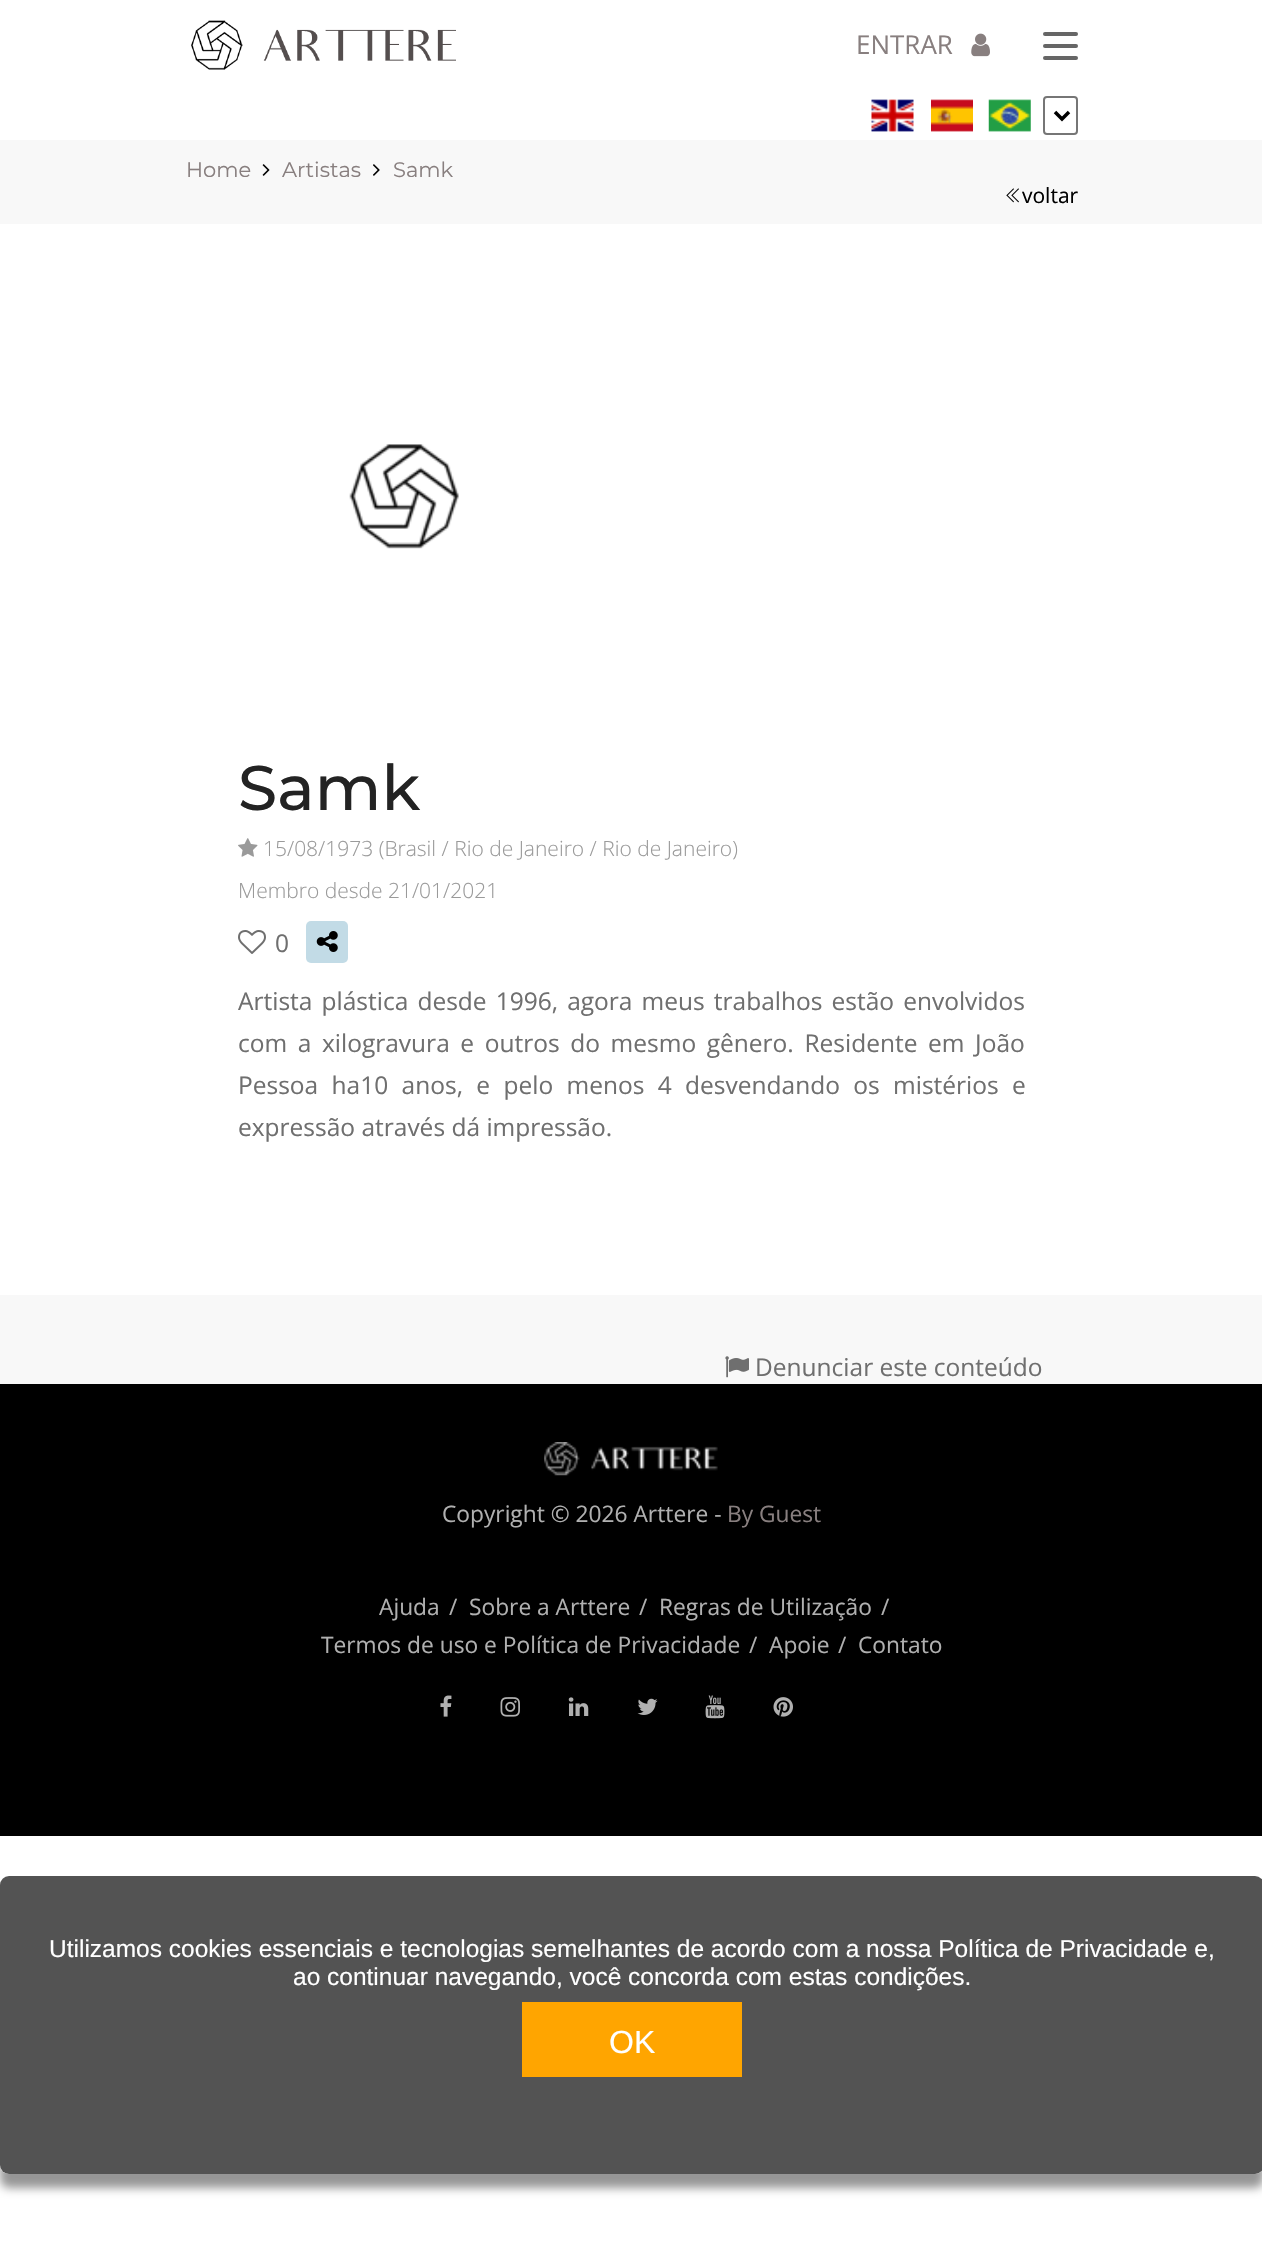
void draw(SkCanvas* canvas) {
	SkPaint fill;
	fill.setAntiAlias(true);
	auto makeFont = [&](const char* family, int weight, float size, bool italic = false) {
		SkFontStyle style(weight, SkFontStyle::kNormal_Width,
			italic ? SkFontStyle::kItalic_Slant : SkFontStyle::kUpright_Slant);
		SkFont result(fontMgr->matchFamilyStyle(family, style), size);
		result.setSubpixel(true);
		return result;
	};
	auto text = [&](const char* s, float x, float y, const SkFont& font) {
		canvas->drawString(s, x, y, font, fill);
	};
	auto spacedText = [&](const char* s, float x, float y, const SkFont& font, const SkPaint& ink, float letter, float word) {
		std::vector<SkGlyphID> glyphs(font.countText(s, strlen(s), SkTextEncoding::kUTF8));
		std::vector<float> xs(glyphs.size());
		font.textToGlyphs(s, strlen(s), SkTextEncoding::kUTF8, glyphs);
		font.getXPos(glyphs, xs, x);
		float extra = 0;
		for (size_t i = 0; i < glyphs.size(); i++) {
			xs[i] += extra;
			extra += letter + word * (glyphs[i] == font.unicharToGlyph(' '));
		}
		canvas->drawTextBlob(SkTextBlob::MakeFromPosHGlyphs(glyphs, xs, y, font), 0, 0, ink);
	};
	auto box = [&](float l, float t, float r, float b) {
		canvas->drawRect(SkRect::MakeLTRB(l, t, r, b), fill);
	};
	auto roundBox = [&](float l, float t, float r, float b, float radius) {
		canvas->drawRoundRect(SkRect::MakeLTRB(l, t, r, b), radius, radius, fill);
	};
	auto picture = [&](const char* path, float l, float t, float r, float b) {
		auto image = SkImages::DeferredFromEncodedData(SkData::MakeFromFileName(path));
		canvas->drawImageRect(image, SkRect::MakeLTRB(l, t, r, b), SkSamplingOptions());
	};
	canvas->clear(0xFFFFFFFF);
	fill.setColor(0xFFF8F8F8);
	box(0, 140, 1262, 1384);
	picture("image0.png", 191, 20, 456, 70);
	picture("image1.png", 971, 33, 990, 57);
	fill.setColor(0xFF666666);
	roundBox(1043, 32, 1078, 36, 2);
	roundBox(1043, 44, 1078, 48, 2);
	roundBox(1043, 56, 1078, 60, 2);
	picture("image2.png", 871, 99, 914, 132);
	picture("image3.png", 931, 99, 973, 132);
	picture("image4.png", 988, 99, 1031, 132);
	fill.setStyle(SkPaint::kStroke_Style);
	fill.setStrokeWidth(2);
	fill.setColor(0xFF767676);
	canvas->drawRoundRect(SkRect::MakeLTRB(1044, 97, 1077, 134), 3, 3, fill);
	fill.setStrokeWidth(3.5f);
	fill.setColor(0xFF000000);
	canvas->drawPath(SkPathBuilder().moveTo(1055, 112).lineTo(1062, 119).lineTo(1069, 112).detach(), fill);
	picture("image5.png", 262, 164, 270, 176);
	picture("image6.png", 373, 164, 380, 176);
	picture("image7.png", 1006, 188, 1019, 203);
	fill.setStyle(SkPaint::kFill_Style);
	fill.setColor(0xFFFFFFFF);
	box(0, 224, 1262, 1295);
	picture("image8.png", 349, 444, 459, 549);
	picture("image9.png", 238, 838, 258, 857);
	picture("image10.png", 238, 930, 266, 954);
	fill.setColor(0xFFC2DBE6);
	roundBox(306, 921, 348, 963, 5);
	picture("image11.png", 316, 931, 338, 952);
	picture("image12.png", 725, 1356, 749, 1378);
	fill.setColor(0xFF000000);
	box(0, 1384, 1262, 1836);
	picture("image13.png", 544, 1442, 718, 1476);
	picture("image14.png", 440, 1695, 452, 1717);
	picture("image15.png", 500, 1697, 520, 1717);
	picture("image16.png", 568, 1697, 589, 1716);
	picture("image17.png", 637, 1698, 658, 1715);
	picture("image18.png", 705, 1695, 725, 1719);
	picture("image19.png", 773, 1697, 793, 1717);
	canvas->save();
	canvas->clipPath(SkPathBuilder(SkPathFillType::kEvenOdd).moveTo(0, 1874).lineTo(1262, 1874).lineTo(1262, 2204).lineTo(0, 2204).close().moveTo(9, 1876).lineTo(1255, 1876).cubicTo(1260, 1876, 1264, 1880, 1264, 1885).lineTo(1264, 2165).cubicTo(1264, 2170, 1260, 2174, 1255, 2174).lineTo(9, 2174).cubicTo(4, 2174, 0, 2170, 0, 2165).lineTo(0, 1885).cubicTo(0, 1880, 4, 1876, 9, 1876).close().detach(), true);
	fill.setColor(0x69000000);
	fill.setMaskFilter(SkMaskFilter::MakeBlur(kNormal_SkBlurStyle, 5));
	canvas->drawRoundRect(SkRect::MakeLTRB(0, 1890, 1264, 2188), 9, 9, fill);
	fill.setMaskFilter(nullptr);
	canvas->restore();
	fill.setColor(0xE6404040);
	roundBox(0, 1876, 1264, 2174, 9);
	fill.setColor(0xFFFFA500);
	box(522, 2002, 742, 2077);
	auto font1 = makeFont("Open Sans", 400, 26);
	fill.setColor(0xFF887F7F);
	text("ENTRAR", 856, 54, font1);
	auto font2 = makeFont("Montserrat", 400, 21);
	text("Home", 186, 177, font2);
	text("Artistas", 282, 177, font2);
	text("Samk", 393, 177, font2);
	auto font3 = makeFont("Open Sans", 400, 21);
	fill.setColor(0xFF000000);
	text("voltar", 1022, 203, font3);
	auto font4 = makeFont("Montserrat", 500, 63);
	fill.setColor(0xFF232323);
	text("Samk", 238, 810, font4);
	auto font5 = makeFont("Open Sans", 300, 21);
	fill.setColor(0xFF9A9A9A);
	text("15/08/1973 (Brasil / Rio de Janeiro / Rio de Janeiro)", 263, 856, font5);
	text("Membro desde 21/01/2021", 238, 898, font5);
	auto font6 = makeFont("Open Sans", 400, 24.5f);
	fill.setColor(0xFF6F6F6F);
	text("0", 275, 952, font6);
	spacedText("Artista plástica desde 1996, agora meus trabalhos estão envolvidos", 238, 1010, font6, fill, 0, 2.75f);
	spacedText("com a xilogravura e outros do mesmo gênero. Residente em João", 238, 1052, font6, fill, 0, 4.25f);
	spacedText("Pessoa ha10 anos, e pelo menos 4 desvendando os mistérios e", 238, 1094, font6, fill, 0, 7);
	text("expressão através dá impressão.", 238, 1136, font6);
	text("Denunciar este conteúdo", 755, 1376, font6);
	auto font7 = makeFont("Open Sans", 400, 22.75f);
	fill.setColor(0xFFB0B0B0);
	text("Copyright © 2026 Arttere -", 442, 1522, font7);
	fill.setColor(0xFF887F7F);
	text("By Guest", 727, 1522, font7);
	fill.setColor(0xFFB0B0B0);
	text("Ajuda", 379, 1615, font7);
	text("/", 449, 1615, font7);
	text("Sobre a Arttere", 469, 1615, font7);
	text("/", 639, 1615, font7);
	text("Regras de Utilização", 659, 1615, font7);
	text("/", 881, 1615, font7);
	text("Termos de uso e Política de Privacidade", 321, 1653, font7);
	text("/", 749, 1653, font7);
	text("Apoie", 769, 1653, font7);
	text("/", 838, 1653, font7);
	text("Contato", 858, 1653, font7);
	auto font8 = makeFont("Liberation Sans", 400, 24.5f);
	fill.setColor(0xFFFFFFFF);
	text("Utilizamos cookies essenciais e tecnologias semelhantes de acordo com a nossa Política de Privacidade e,", 49, 1957, font8);
	text("ao continuar navegando, você concorda com estas condições.", 293, 1985, font8);
	auto font9 = makeFont("Liberation Sans", 400, 32);
	text("OK", 609, 2053, font9);
}
